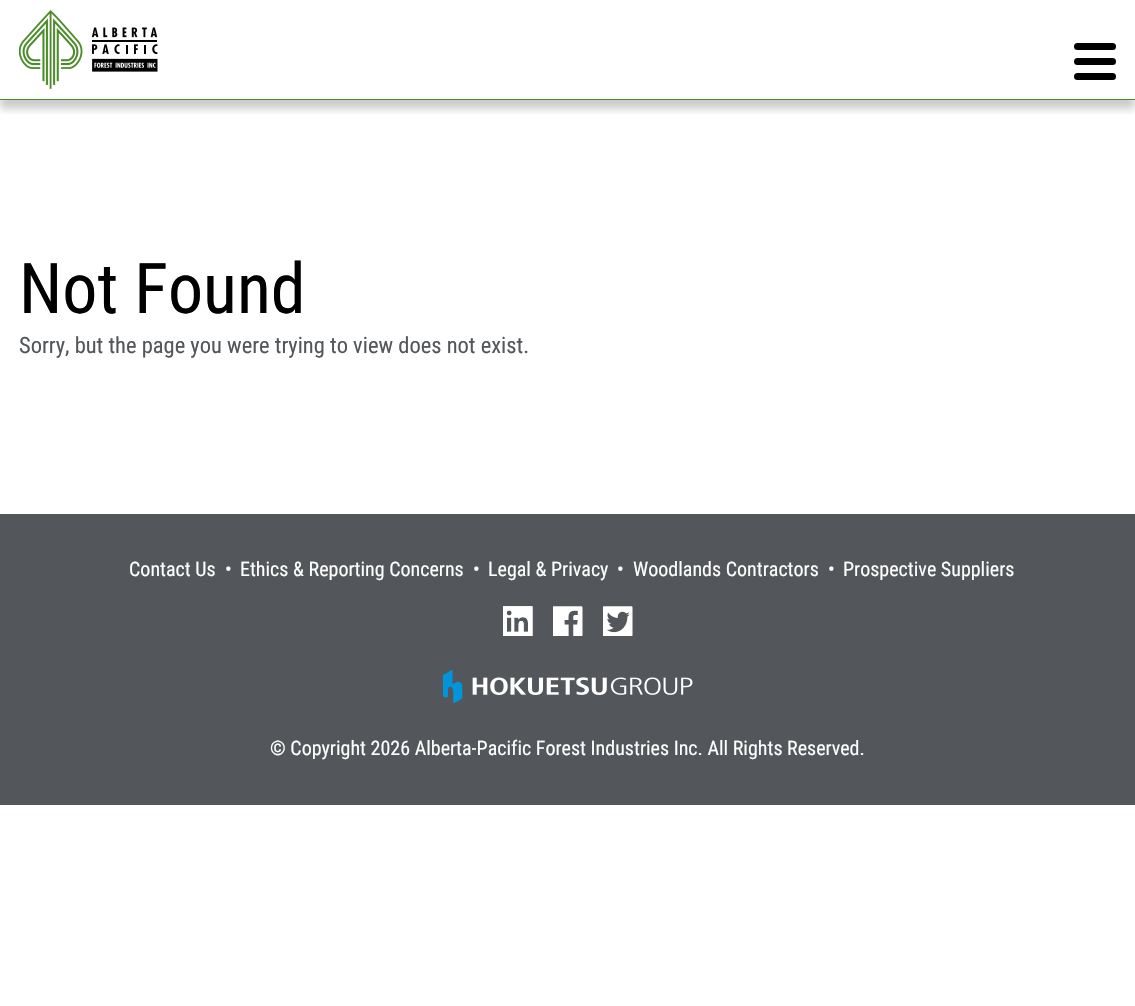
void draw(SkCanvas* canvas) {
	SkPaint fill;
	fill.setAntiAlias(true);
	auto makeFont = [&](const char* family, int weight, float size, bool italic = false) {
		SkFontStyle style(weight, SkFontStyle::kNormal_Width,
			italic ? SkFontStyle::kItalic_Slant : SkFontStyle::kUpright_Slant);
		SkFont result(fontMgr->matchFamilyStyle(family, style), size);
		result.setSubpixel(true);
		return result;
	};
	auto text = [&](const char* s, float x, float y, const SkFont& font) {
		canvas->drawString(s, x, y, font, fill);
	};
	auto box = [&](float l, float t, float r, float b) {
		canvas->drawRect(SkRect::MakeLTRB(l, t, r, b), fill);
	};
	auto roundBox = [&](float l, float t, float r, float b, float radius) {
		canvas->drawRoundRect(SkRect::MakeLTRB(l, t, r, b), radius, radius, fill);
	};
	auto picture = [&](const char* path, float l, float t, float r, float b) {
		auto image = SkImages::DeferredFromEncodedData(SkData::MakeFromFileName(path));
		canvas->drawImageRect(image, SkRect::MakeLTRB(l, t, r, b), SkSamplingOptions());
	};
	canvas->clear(0xFFFFFFFF);
	canvas->save();
	canvas->clipRect(SkRect::MakeLTRB(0, 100, 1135, 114));
	fill.setColor(0x33000000);
	fill.setMaskFilter(SkMaskFilter::MakeBlur(kNormal_SkBlurStyle, 4));
	canvas->drawRect(SkRect::MakeLTRB(0, 9, 1135, 109), fill);
	fill.setMaskFilter(nullptr);
	canvas->restore();
	fill.setColor(0xFF4C8C2B);
	box(0, 99, 1135, 100);
	picture("image0.png", 19, 10, 158, 89);
	fill.setColor(0xFF000000);
	roundBox(1074, 43, 1116, 50, 3.5f);
	roundBox(1074, 58, 1116, 65, 3.5f);
	roundBox(1074, 73, 1116, 80, 3.5f);
	fill.setColor(0xFF53565A);
	box(0, 514, 1135, 805);
	picture("image1.png", 503, 606, 533, 636);
	picture("image2.png", 553, 606, 583, 636);
	picture("image3.png", 603, 606, 633, 636);
	picture("image4.png", 443, 670, 693, 703);
	auto font1 = makeFont("Roboto Condensed", 400, 70);
	fill.setColor(0xFF000000);
	text("Not Found", 19, 313, font1);
	auto font2 = makeFont("Roboto Condensed", 400, 22.5f);
	fill.setColor(0xFF53565A);
	text("Sorry, but the page you were trying to view does not exist.", 19, 353, font2);
	auto font3 = makeFont("Roboto Condensed", 400, 20);
	fill.setColor(0xFFFFFFFF);
	text("Contact Us", 129, 576, font3);
	text("•", 225, 576, font3);
	text("Ethics & Reporting Concerns", 240, 576, font3);
	text("•", 473, 576, font3);
	text("Legal & Privacy", 488, 576, font3);
	text("•", 617, 576, font3);
	text("Woodlands Contractors", 633, 576, font3);
	text("•", 828, 576, font3);
	text("Prospective Suppliers", 843, 576, font3);
	text("© Copyright 2026 Alberta-Pacific Forest Industries Inc. All Rights Reserved.", 270, 755, font3);
}
